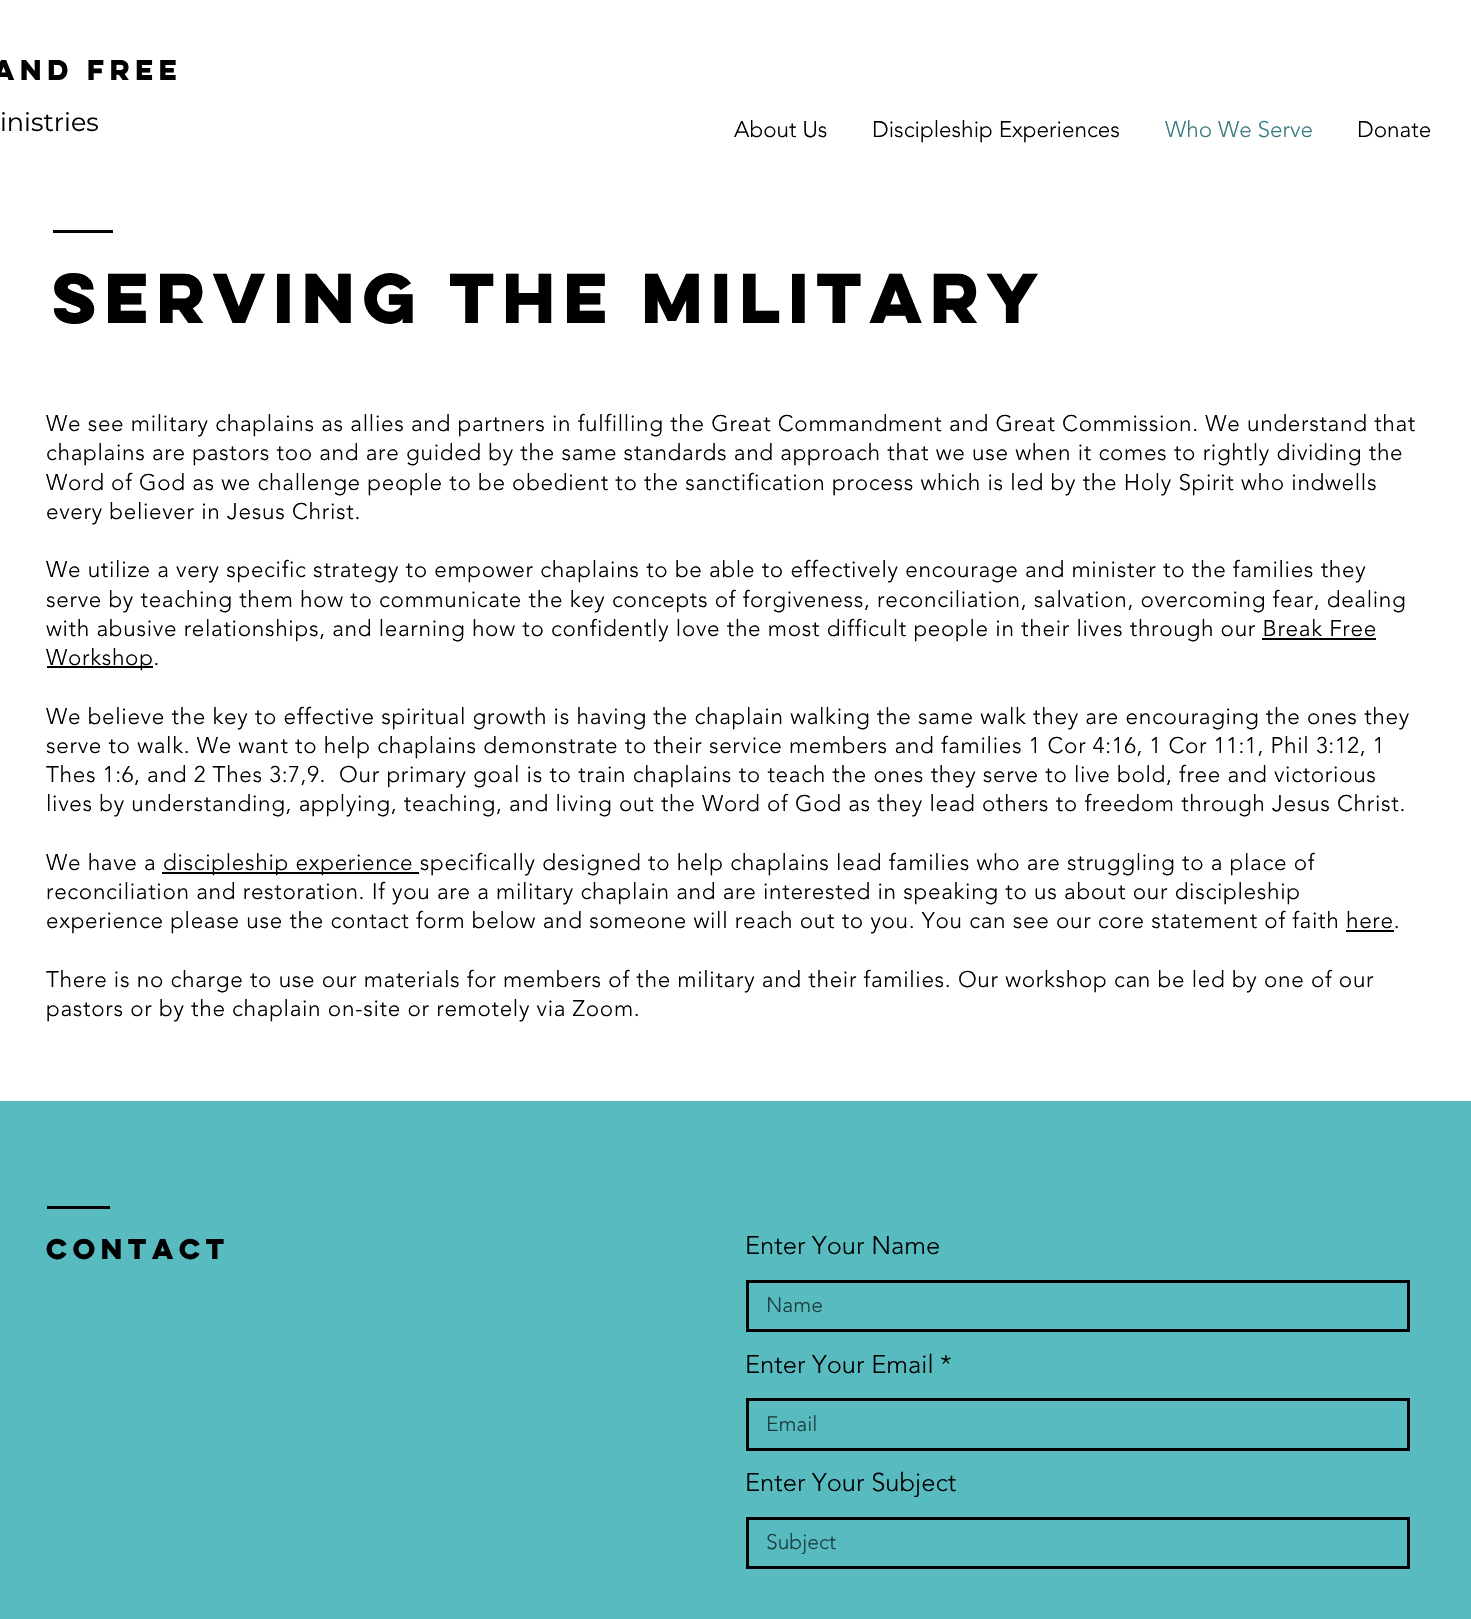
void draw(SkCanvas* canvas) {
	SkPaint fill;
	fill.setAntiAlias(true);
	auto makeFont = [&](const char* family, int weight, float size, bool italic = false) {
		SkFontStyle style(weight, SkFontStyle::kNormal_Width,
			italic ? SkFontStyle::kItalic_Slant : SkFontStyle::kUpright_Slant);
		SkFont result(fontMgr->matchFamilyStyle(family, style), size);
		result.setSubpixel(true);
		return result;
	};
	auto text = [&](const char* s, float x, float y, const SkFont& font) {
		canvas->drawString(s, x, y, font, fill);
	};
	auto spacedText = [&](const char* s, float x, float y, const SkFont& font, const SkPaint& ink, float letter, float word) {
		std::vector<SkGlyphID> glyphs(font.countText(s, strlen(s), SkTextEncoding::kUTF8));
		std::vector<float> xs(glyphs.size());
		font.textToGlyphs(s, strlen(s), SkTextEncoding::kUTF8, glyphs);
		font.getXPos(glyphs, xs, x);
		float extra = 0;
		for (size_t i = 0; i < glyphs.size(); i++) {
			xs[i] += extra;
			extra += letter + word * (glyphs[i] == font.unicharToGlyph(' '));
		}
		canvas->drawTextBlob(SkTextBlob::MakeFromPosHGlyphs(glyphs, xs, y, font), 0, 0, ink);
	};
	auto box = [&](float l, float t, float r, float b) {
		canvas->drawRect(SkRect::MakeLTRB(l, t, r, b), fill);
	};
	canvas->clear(0xFFFFFFFF);
	fill.setColor(0xFF000000);
	box(53, 230, 113, 233);
	box(1262, 638, 1376, 640);
	box(47, 666, 153, 668);
	box(162, 872, 419, 874);
	box(1346, 930, 1394, 932);
	fill.setColor(0xFF57BBBF);
	box(0, 1101, 1471, 1619);
	fill.setColor(0xFF000000);
	box(47, 1206, 110, 1209);
	fill.setStyle(SkPaint::kStroke_Style);
	fill.setStrokeWidth(3);
	canvas->drawRect(SkRect::MakeLTRB(747.5f, 1281.5f, 1408.5f, 1330.5f), fill);
	canvas->drawRect(SkRect::MakeLTRB(747.5f, 1399.5f, 1408.5f, 1449.5f), fill);
	canvas->drawRect(SkRect::MakeLTRB(747.5f, 1518.5f, 1408.5f, 1567.5f), fill);
	auto font1 = makeFont("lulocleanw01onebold", 700, 25.5f);
	fill.setStyle(SkPaint::kFill_Style);
	text("and free", -7, 80, font1);
	auto font2 = makeFont("Montserrat", 400, 25.5f);
	text("inistries", 0, 131, font2);
	auto font3 = makeFont("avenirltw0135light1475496", 300, 22.5f);
	text("About Us", 734, 137, font3);
	text("Discipleship Experiences", 872, 137, font3);
	fill.setColor(0xFF3A7C80);
	text("Who We Serve", 1165, 137, font3);
	fill.setColor(0xFF000000);
	text("Donate", 1357, 137, font3);
	auto font4 = makeFont("lulocleanw01onebold", 700, 63);
	spacedText("serving the military", 52, 323, font4, fill, -6.25f, 0);
	spacedText("We see military chaplains as allies and partners in fulfilling the Great Commandment and Great Commission. We understand that", 46, 431, font3, fill, 0.68f, 0);
	spacedText("chaplains are pastors too and are guided by the same standards and approach that we use when it comes to rightly dividing the", 46, 460, font3, fill, 0.68f, 0);
	spacedText("Word of God as we challenge people to be obedient to the sanctification process which is led by the Holy Spirit who indwells", 46, 490, font3, fill, 0.68f, 0);
	spacedText("every believer in Jesus Christ.", 46, 519, font3, fill, 0.68f, 0);
	spacedText("We utilize a very specific strategy to empower chaplains to be able to effectively encourage and minister to the families they", 46, 577, font3, fill, 0.68f, 0);
	spacedText("serve by teaching them how to communicate the key concepts of forgiveness, reconciliation, salvation, overcoming fear, dealing", 46, 607, font3, fill, 0.68f, 0);
	spacedText("with abusive relationships, and learning how to confidently love the most difficult people in their lives through our Break Free", 46, 636, font3, fill, 0.68f, 0);
	spacedText("Workshop.", 46, 665, font3, fill, 0.68f, 0);
	spacedText("We believe the key to effective spiritual growth is having the chaplain walking the same walk they are encouraging the ones they", 46, 724, font3, fill, 0.68f, 0);
	spacedText("serve to walk. We want to help chaplains demonstrate to their service members and families 1 Cor 4:16, 1 Cor 11:1, Phil 3:12, 1", 46, 753, font3, fill, 0.68f, 0);
	spacedText("Thes 1:6, and 2 Thes 3:7,9.  Our primary goal is to train chaplains to teach the ones they serve to live bold, free and victorious", 46, 782, font3, fill, 0.68f, 0);
	spacedText("lives by understanding, applying, teaching, and living out the Word of God as they lead others to freedom through Jesus Christ.", 46, 811, font3, fill, 0.68f, 0);
	spacedText("We have a", 46, 870, font3, fill, 0.68f, 0);
	spacedText("discipleship experience specifically designed to help chaplains lead families who are struggling to a place of", 163, 870, font3, fill, 0.68f, 0);
	spacedText("reconciliation and restoration. If you are a military chaplain and are interested in speaking to us about our discipleship", 46, 899, font3, fill, 0.68f, 0);
	spacedText("experience please use the contact form below and someone will reach out to you. You can see our core statement of faith here.", 46, 928, font3, fill, 0.68f, 0);
	spacedText("There is no charge to use our materials for members of the military and their families. Our workshop can be led by one of our", 46, 987, font3, fill, 0.68f, 0);
	spacedText("pastors or by the chaplain on-site or remotely via Zoom.", 46, 1016, font3, fill, 0.68f, 0);
	text("Contact", 46, 1259, font1);
	auto font5 = makeFont("avenirltw0135light1475496", 300, 25.5f);
	text("Enter Your Name", 745, 1254, font5);
	auto font6 = makeFont("avenirltw0135light1475496", 300, 21);
	fill.setColor(0xFF1D3E40);
	text("Name", 766, 1312, font6);
	fill.setColor(0xFF000000);
	text("Enter Your Email *", 745, 1373, font5);
	fill.setColor(0xFF1D3E40);
	text("Email", 766, 1431, font6);
	fill.setColor(0xFF000000);
	text("Enter Your Subject", 745, 1491, font5);
	fill.setColor(0xFF1D3E40);
	text("Subject", 766, 1549, font6);
}
